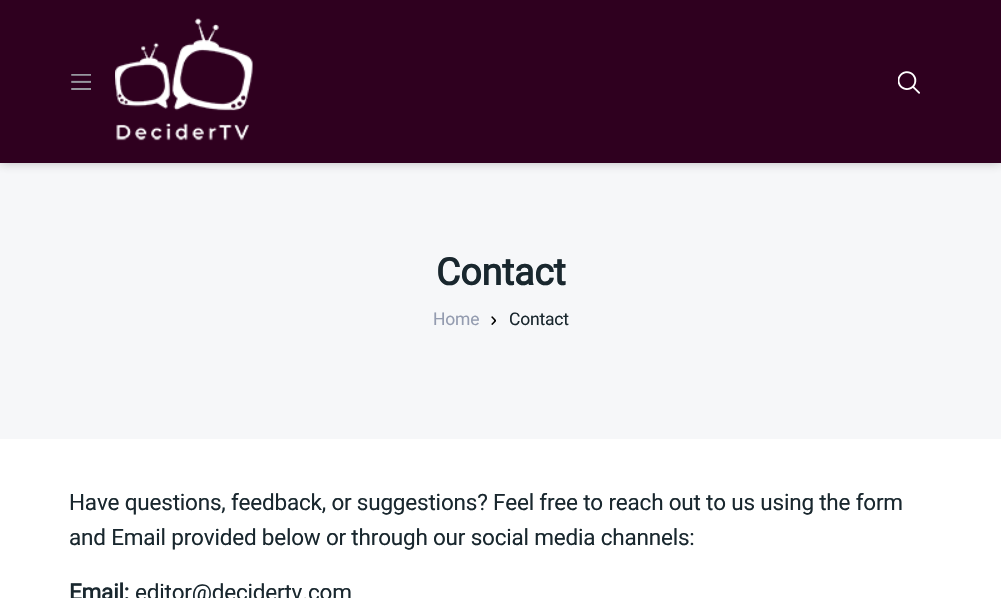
void draw(SkCanvas* canvas) {
	SkPaint fill;
	fill.setAntiAlias(true);
	auto makeFont = [&](const char* family, int weight, float size, bool italic = false) {
		SkFontStyle style(weight, SkFontStyle::kNormal_Width,
			italic ? SkFontStyle::kItalic_Slant : SkFontStyle::kUpright_Slant);
		SkFont result(fontMgr->matchFamilyStyle(family, style), size);
		result.setSubpixel(true);
		return result;
	};
	auto spacedText = [&](const char* s, float x, float y, const SkFont& font, const SkPaint& ink, float letter, float word) {
		std::vector<SkGlyphID> glyphs(font.countText(s, strlen(s), SkTextEncoding::kUTF8));
		std::vector<float> xs(glyphs.size());
		font.textToGlyphs(s, strlen(s), SkTextEncoding::kUTF8, glyphs);
		font.getXPos(glyphs, xs, x);
		float extra = 0;
		for (size_t i = 0; i < glyphs.size(); i++) {
			xs[i] += extra;
			extra += letter + word * (glyphs[i] == font.unicharToGlyph(' '));
		}
		canvas->drawTextBlob(SkTextBlob::MakeFromPosHGlyphs(glyphs, xs, y, font), 0, 0, ink);
	};
	auto box = [&](float l, float t, float r, float b) {
		canvas->drawRect(SkRect::MakeLTRB(l, t, r, b), fill);
	};
	auto picture = [&](const char* path, float l, float t, float r, float b) {
		auto image = SkImages::DeferredFromEncodedData(SkData::MakeFromFileName(path));
		canvas->drawImageRect(image, SkRect::MakeLTRB(l, t, r, b), SkSamplingOptions());
	};
	canvas->clear(0xFFFFFFFF);
	fill.setColor(0xFFF6F7F9);
	box(0, 163, 1001, 439);
	fill.setColor(0x4D333333);
	fill.setMaskFilter(SkMaskFilter::MakeBlur(kNormal_SkBlurStyle, 5));
	canvas->drawRect(SkRect::MakeLTRB(0, 0, 1001, 163), fill);
	fill.setMaskFilter(nullptr);
	fill.setColor(0xFF2F001F);
	box(0, 0, 1001, 163);
	picture("image0.png", 71, 74, 91, 90);
	picture("image1.png", 115, 18, 253, 141);
	picture("image2.png", 898, 71, 920, 94);
	picture("image3.png", 491, 316, 496, 325);
	auto font1 = makeFont("Roboto", 700, 37.5f);
	fill.setColor(0xFF19272E);
	spacedText("Contact", 436, 285, font1, fill, -0.2f, 0);
	auto font2 = makeFont("Roboto", 400, 17.5f);
	fill.setColor(0xFF949CB0);
	spacedText("Home", 433, 325, font2, fill, -0.2f, 0);
	fill.setColor(0xFF19272E);
	spacedText("Contact", 509, 325, font2, fill, -0.2f, 0);
	auto font3 = makeFont("Roboto", 400, 22.5f);
	spacedText("Have questions, feedback, or suggestions? Feel free to reach out to us using the form", 69, 510, font3, fill, -0.2f, 0);
	spacedText("and Email provided below or through our social media channels:", 69, 545, font3, fill, -0.2f, 0);
	auto font4 = makeFont("Roboto", 700, 22.5f);
	spacedText("Email:", 69, 600, font4, fill, -0.2f, 0);
	spacedText("editor@decidertv.com", 135, 600, font3, fill, -0.2f, 0);
}
